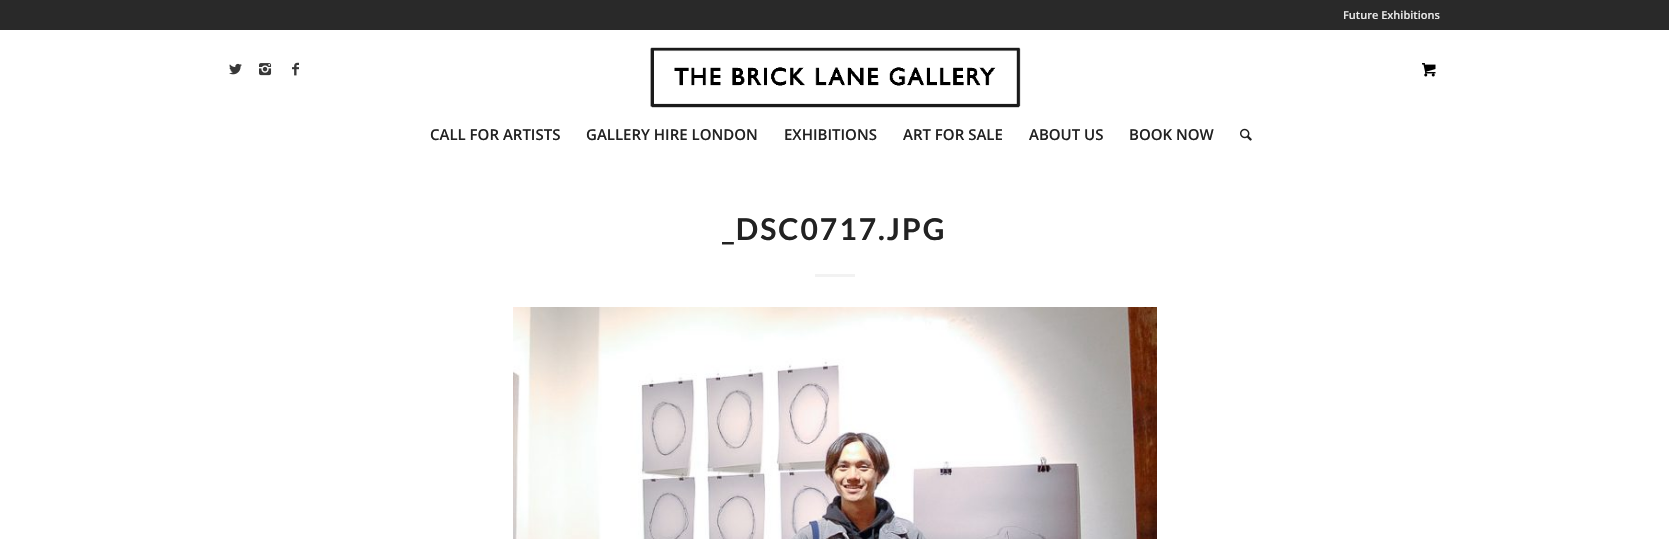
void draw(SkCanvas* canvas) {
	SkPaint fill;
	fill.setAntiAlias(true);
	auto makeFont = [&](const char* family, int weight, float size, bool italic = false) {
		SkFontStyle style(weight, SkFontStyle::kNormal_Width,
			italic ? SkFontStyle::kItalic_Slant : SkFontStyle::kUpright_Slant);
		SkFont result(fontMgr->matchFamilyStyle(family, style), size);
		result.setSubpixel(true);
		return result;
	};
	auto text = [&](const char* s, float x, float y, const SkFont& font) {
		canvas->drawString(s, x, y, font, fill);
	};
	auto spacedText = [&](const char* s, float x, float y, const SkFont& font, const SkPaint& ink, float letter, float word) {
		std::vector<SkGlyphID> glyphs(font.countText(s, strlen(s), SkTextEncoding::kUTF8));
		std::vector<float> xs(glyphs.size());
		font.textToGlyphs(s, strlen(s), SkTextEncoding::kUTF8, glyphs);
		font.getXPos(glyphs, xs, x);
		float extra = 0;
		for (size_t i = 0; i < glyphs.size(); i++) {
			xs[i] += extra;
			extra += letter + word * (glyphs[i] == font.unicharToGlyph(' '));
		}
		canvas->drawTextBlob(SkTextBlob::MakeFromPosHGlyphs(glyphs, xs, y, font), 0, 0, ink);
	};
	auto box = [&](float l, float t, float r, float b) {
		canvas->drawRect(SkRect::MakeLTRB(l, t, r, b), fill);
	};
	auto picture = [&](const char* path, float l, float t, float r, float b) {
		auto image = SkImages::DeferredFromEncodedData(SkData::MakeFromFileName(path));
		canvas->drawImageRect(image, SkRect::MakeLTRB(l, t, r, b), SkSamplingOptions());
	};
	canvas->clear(0xFFFFFFFF);
	fill.setColor(0xFF292929);
	box(0, 0, 1669, 30);
	picture("image0.png", 229, 63, 242, 75);
	picture("image1.png", 259, 63, 272, 76);
	picture("image2.png", 292, 62, 299, 76);
	picture("image3.png", 650, 47, 1021, 108);
	picture("image4.png", 1422, 63, 1436, 77);
	picture("image5.png", 1240, 128, 1252, 141);
	fill.setColor(0xFFF2F2F2);
	box(815, 274, 855, 277);
	picture("image6.png", 513, 307, 1157, 539);
	auto font1 = makeFont("Open Sans", 600, 11);
	fill.setColor(0xFFEBEBEB);
	text("Future Exhibitions", 1343, 19, font1);
	auto font2 = makeFont("Open Sans", 600, 15);
	fill.setColor(0xFF222222);
	text("CALL FOR ARTISTS", 430, 140, font2);
	text("GALLERY HIRE LONDON", 586, 140, font2);
	text("EXHIBITIONS", 784, 140, font2);
	text("ART FOR SALE", 903, 140, font2);
	text("ABOUT US", 1029, 140, font2);
	text("BOOK NOW", 1129, 140, font2);
	auto font3 = makeFont("Lato", 700, 30);
	spacedText("_DSC0717.JPG", 722, 240, font3, fill, 2, 0);
}
